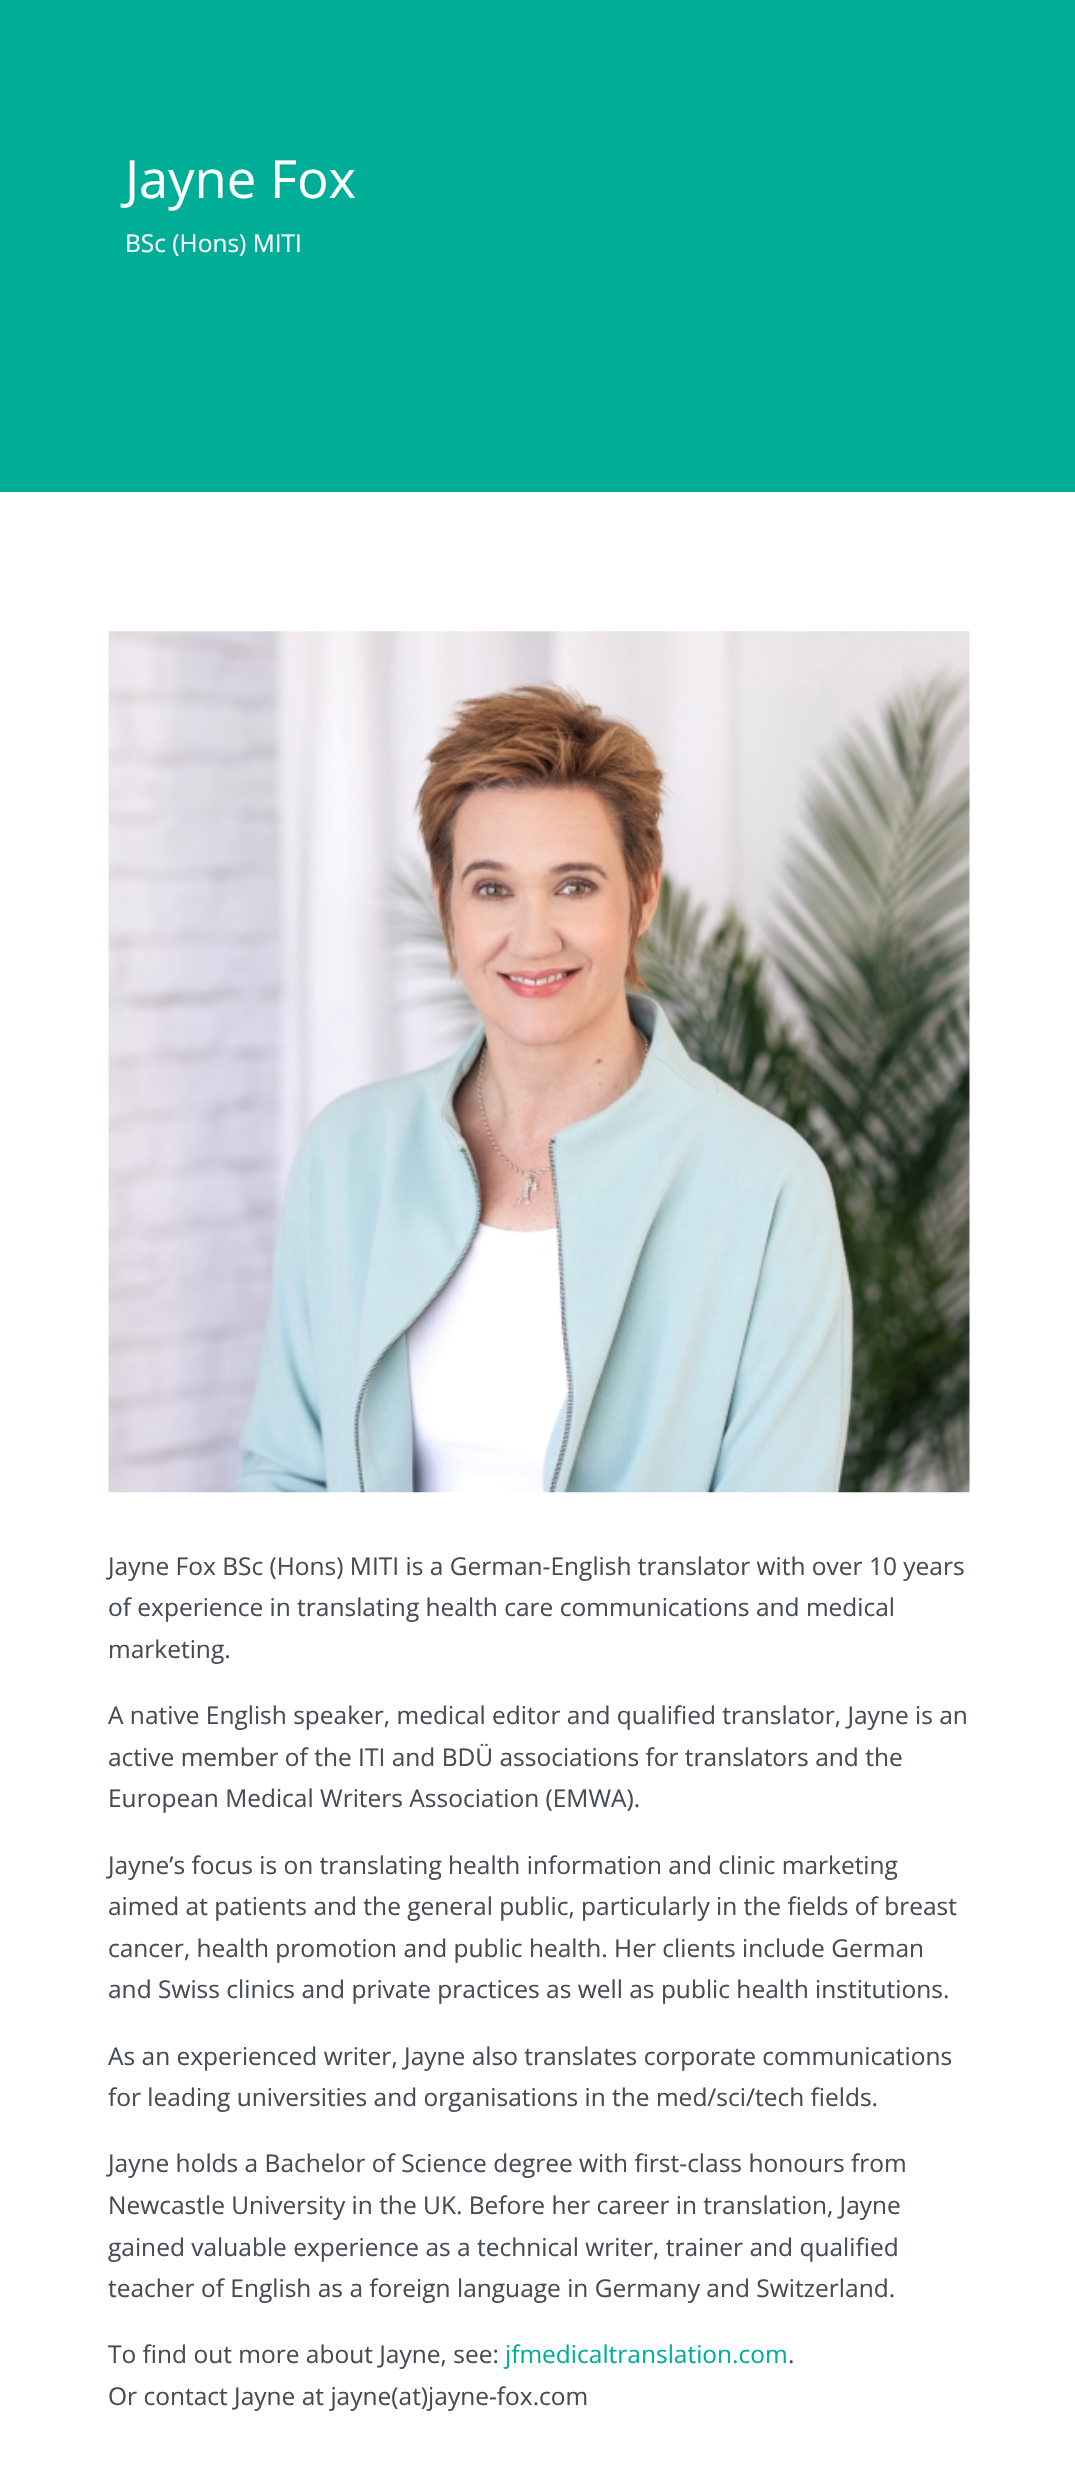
void draw(SkCanvas* canvas) {
	SkPaint fill;
	fill.setAntiAlias(true);
	auto makeFont = [&](const char* family, int weight, float size, bool italic = false) {
		SkFontStyle style(weight, SkFontStyle::kNormal_Width,
			italic ? SkFontStyle::kItalic_Slant : SkFontStyle::kUpright_Slant);
		SkFont result(fontMgr->matchFamilyStyle(family, style), size);
		result.setSubpixel(true);
		return result;
	};
	auto text = [&](const char* s, float x, float y, const SkFont& font) {
		canvas->drawString(s, x, y, font, fill);
	};
	auto box = [&](float l, float t, float r, float b) {
		canvas->drawRect(SkRect::MakeLTRB(l, t, r, b), fill);
	};
	auto picture = [&](const char* path, float l, float t, float r, float b) {
		auto image = SkImages::DeferredFromEncodedData(SkData::MakeFromFileName(path));
		canvas->drawImageRect(image, SkRect::MakeLTRB(l, t, r, b), SkSamplingOptions());
	};
	canvas->clear(0xFFFFFFFF);
	fill.setColor(0xFF00AE98);
	box(0, 0, 1075, 492);
	picture("image0.png", 108, 631, 970, 1493);
	auto font1 = makeFont("Open Sans", 400, 52.5f);
	fill.setColor(0xFFFFFFFF);
	text("Jayne Fox", 125, 198, font1);
	auto font2 = makeFont("Open Sans", 400, 24.5f);
	text("BSc (Hons) MITI", 125, 252, font2);
	fill.setColor(0xFF464C55);
	text("Jayne Fox BSc (Hons) MITI is a German-English translator with over 10 years", 108, 1575, font2);
	text("of experience in translating health care communications and medical", 108, 1616, font2);
	text("marketing.", 108, 1658, font2);
	text("A native English speaker, medical editor and qualified translator, Jayne is an", 108, 1724, font2);
	text("active member of the ITI and BDÜ associations for translators and the", 108, 1766, font2);
	text("European Medical Writers Association (EMWA).", 108, 1807, font2);
	text("Jayne’s focus is on translating health information and clinic marketing", 108, 1874, font2);
	text("aimed at patients and the general public, particularly in the fields of breast", 108, 1915, font2);
	text("cancer, health promotion and public health. Her clients include German", 108, 1957, font2);
	text("and Swiss clinics and private practices as well as public health institutions.", 108, 1998, font2);
	text("As an experienced writer, Jayne also translates corporate communications", 108, 2065, font2);
	text("for leading universities and organisations in the med/sci/tech fields.", 108, 2106, font2);
	text("Jayne holds a Bachelor of Science degree with first-class honours from", 108, 2172, font2);
	text("Newcastle University in the UK. Before her career in translation, Jayne", 108, 2214, font2);
	text("gained valuable experience as a technical writer, trainer and qualified", 108, 2256, font2);
	text("teacher of English as a foreign language in Germany and Switzerland.", 108, 2297, font2);
	text("To find out more about Jayne, see:", 108, 2363, font2);
	fill.setColor(0xFF00AE98);
	text("jfmedicaltranslation.com", 505, 2363, font2);
	fill.setColor(0xFF464C55);
	text(".", 788, 2363, font2);
	text("Or contact Jayne at jayne(at)jayne-fox.com", 108, 2405, font2);
}
